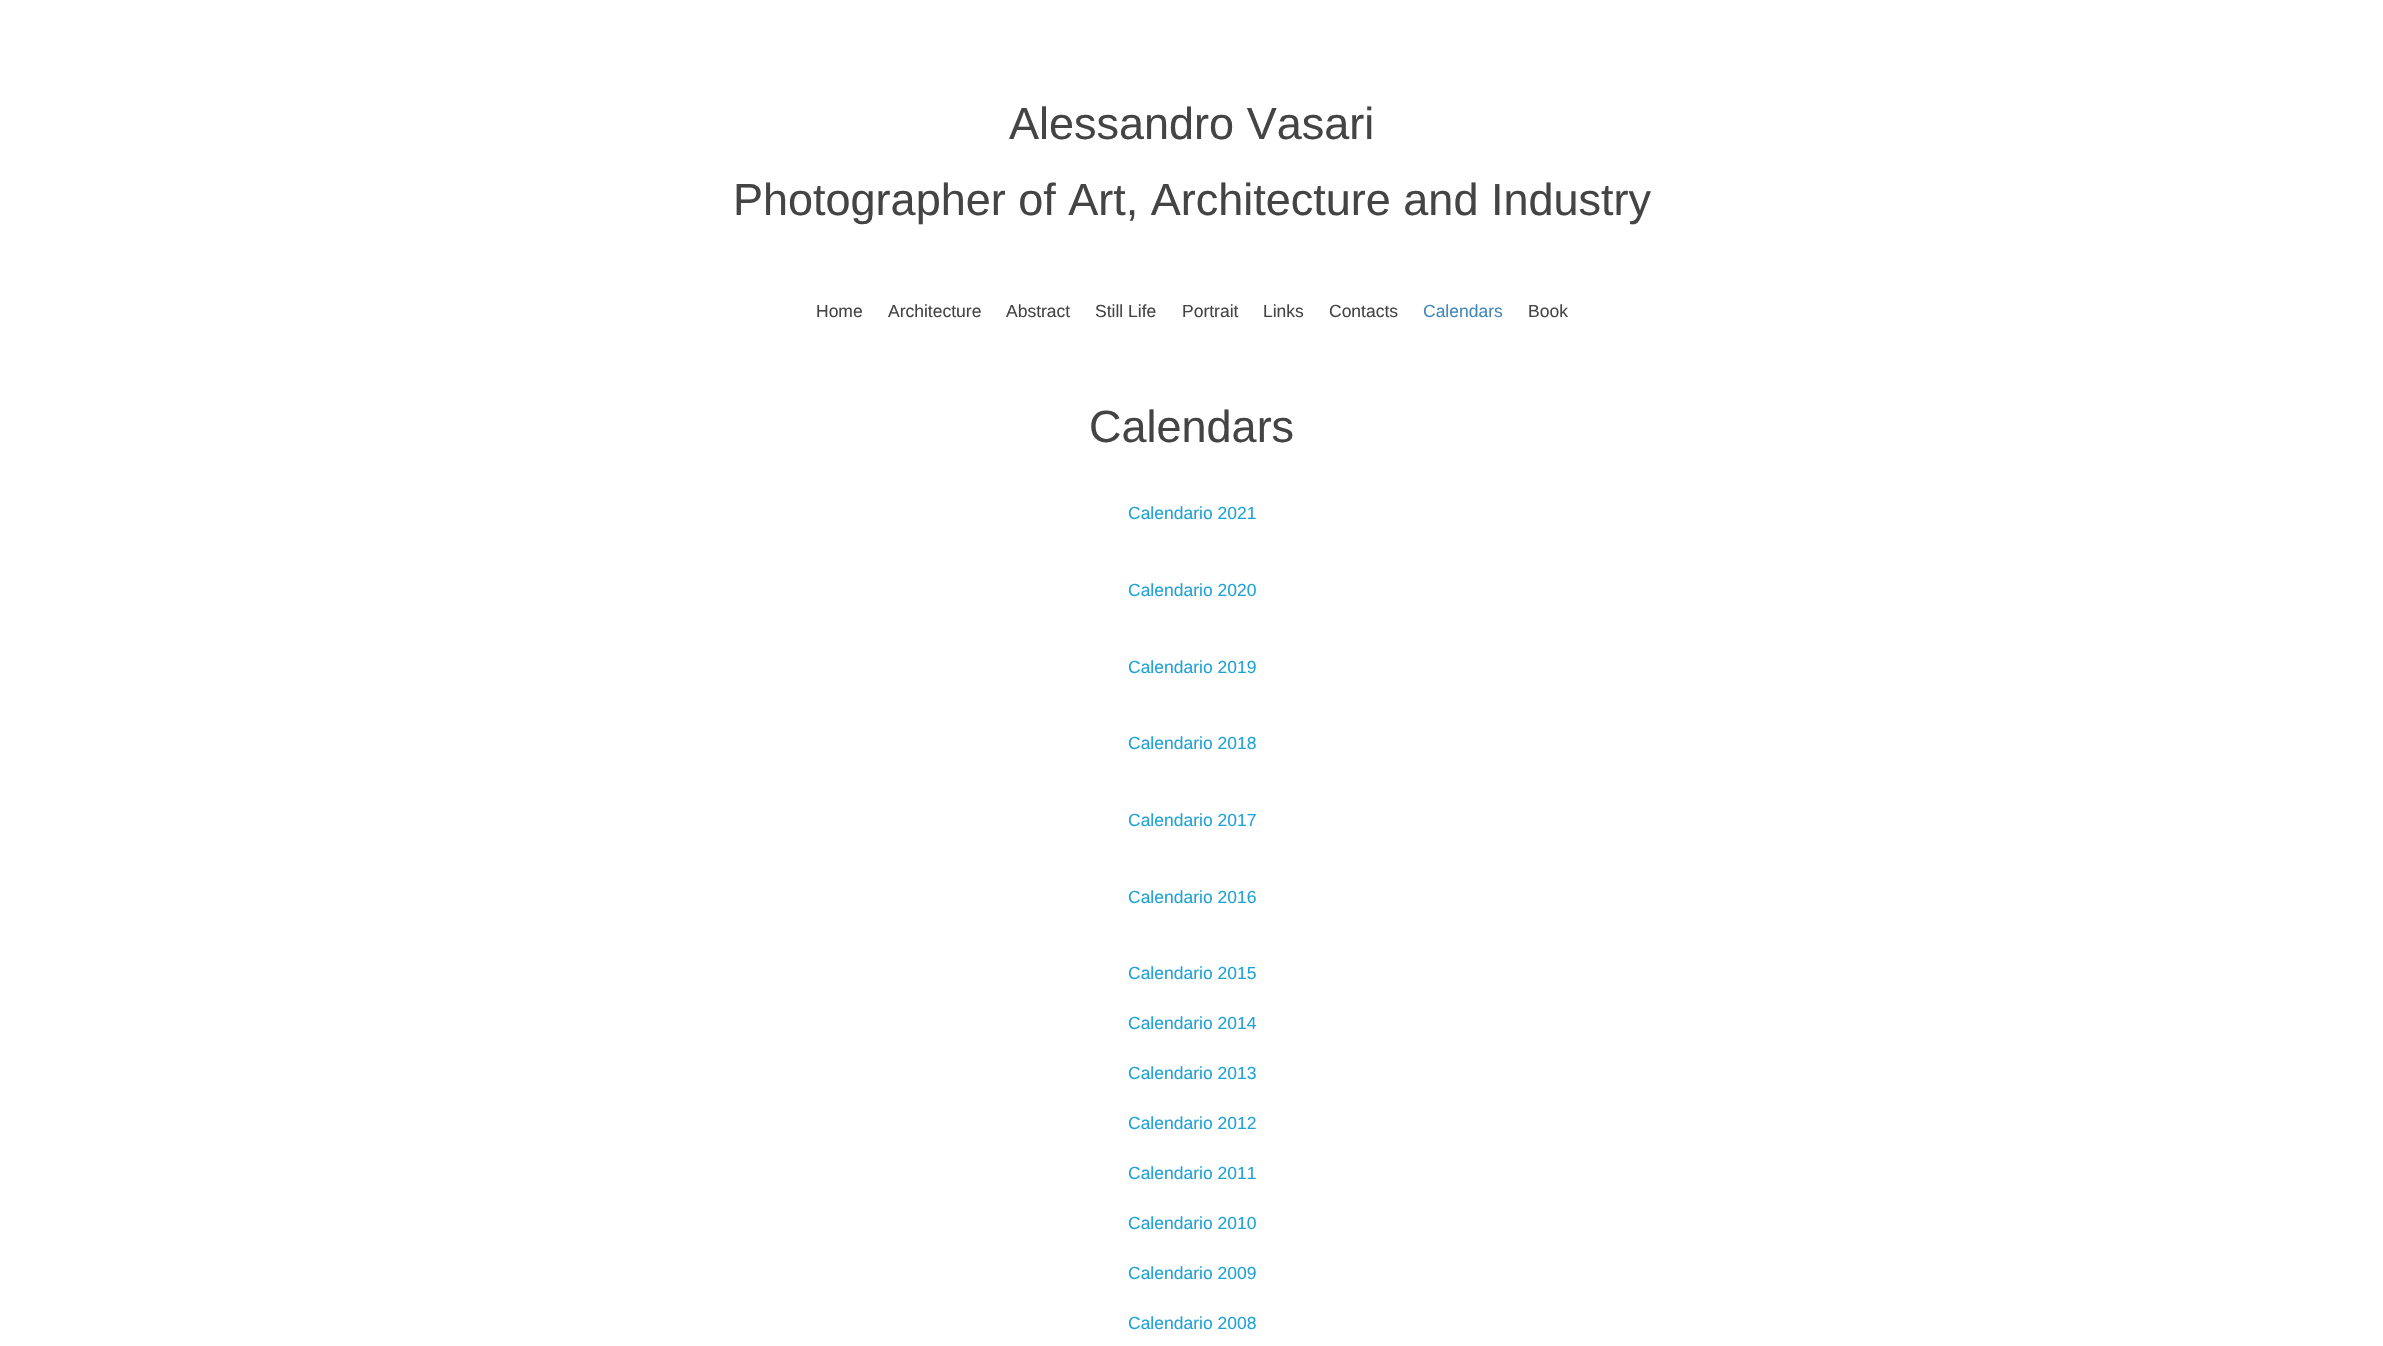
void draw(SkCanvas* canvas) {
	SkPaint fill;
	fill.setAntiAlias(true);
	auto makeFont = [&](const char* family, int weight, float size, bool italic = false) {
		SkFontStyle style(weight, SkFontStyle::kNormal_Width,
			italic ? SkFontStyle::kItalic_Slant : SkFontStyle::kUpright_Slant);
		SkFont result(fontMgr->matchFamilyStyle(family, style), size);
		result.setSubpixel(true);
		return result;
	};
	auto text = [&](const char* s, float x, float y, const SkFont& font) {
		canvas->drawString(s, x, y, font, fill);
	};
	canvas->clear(0xFFFFFFFF);
	auto font1 = makeFont("Liberation Sans", 400, 45);
	fill.setColor(0xFF444444);
	text("Alessandro Vasari", 1009, 139, font1);
	text("Photographer of Art, Architecture and Industry", 733, 215, font1);
	auto font2 = makeFont("Liberation Sans", 400, 17.5f);
	text("Home", 816, 317, font2);
	text("Architecture", 888, 317, font2);
	text("Abstract", 1006, 317, font2);
	text("Still Life", 1095, 317, font2);
	text("Portrait", 1182, 317, font2);
	text("Links", 1263, 317, font2);
	text("Contacts", 1329, 317, font2);
	fill.setColor(0xFF4488BB);
	text("Calendars", 1423, 317, font2);
	fill.setColor(0xFF444444);
	text("Book", 1528, 317, font2);
	text("Calendars", 1089, 442, font1);
	fill.setColor(0xFF1FA2D6);
	text("Calendario 2021", 1128, 519, font2);
	text("Calendario 2020", 1128, 596, font2);
	text("Calendario 2019", 1128, 673, font2);
	text("Calendario 2018", 1128, 749, font2);
	text("Calendario 2017", 1128, 826, font2);
	text("Calendario 2016", 1128, 903, font2);
	text("Calendario 2015", 1128, 979, font2);
	text("Calendario 2014", 1128, 1029, font2);
	text("Calendario 2013", 1128, 1079, font2);
	text("Calendario 2012", 1128, 1129, font2);
	text("Calendario 2011", 1128, 1179, font2);
	text("Calendario 2010", 1128, 1229, font2);
	text("Calendario 2009", 1128, 1279, font2);
	text("Calendario 2008", 1128, 1329, font2);
}
